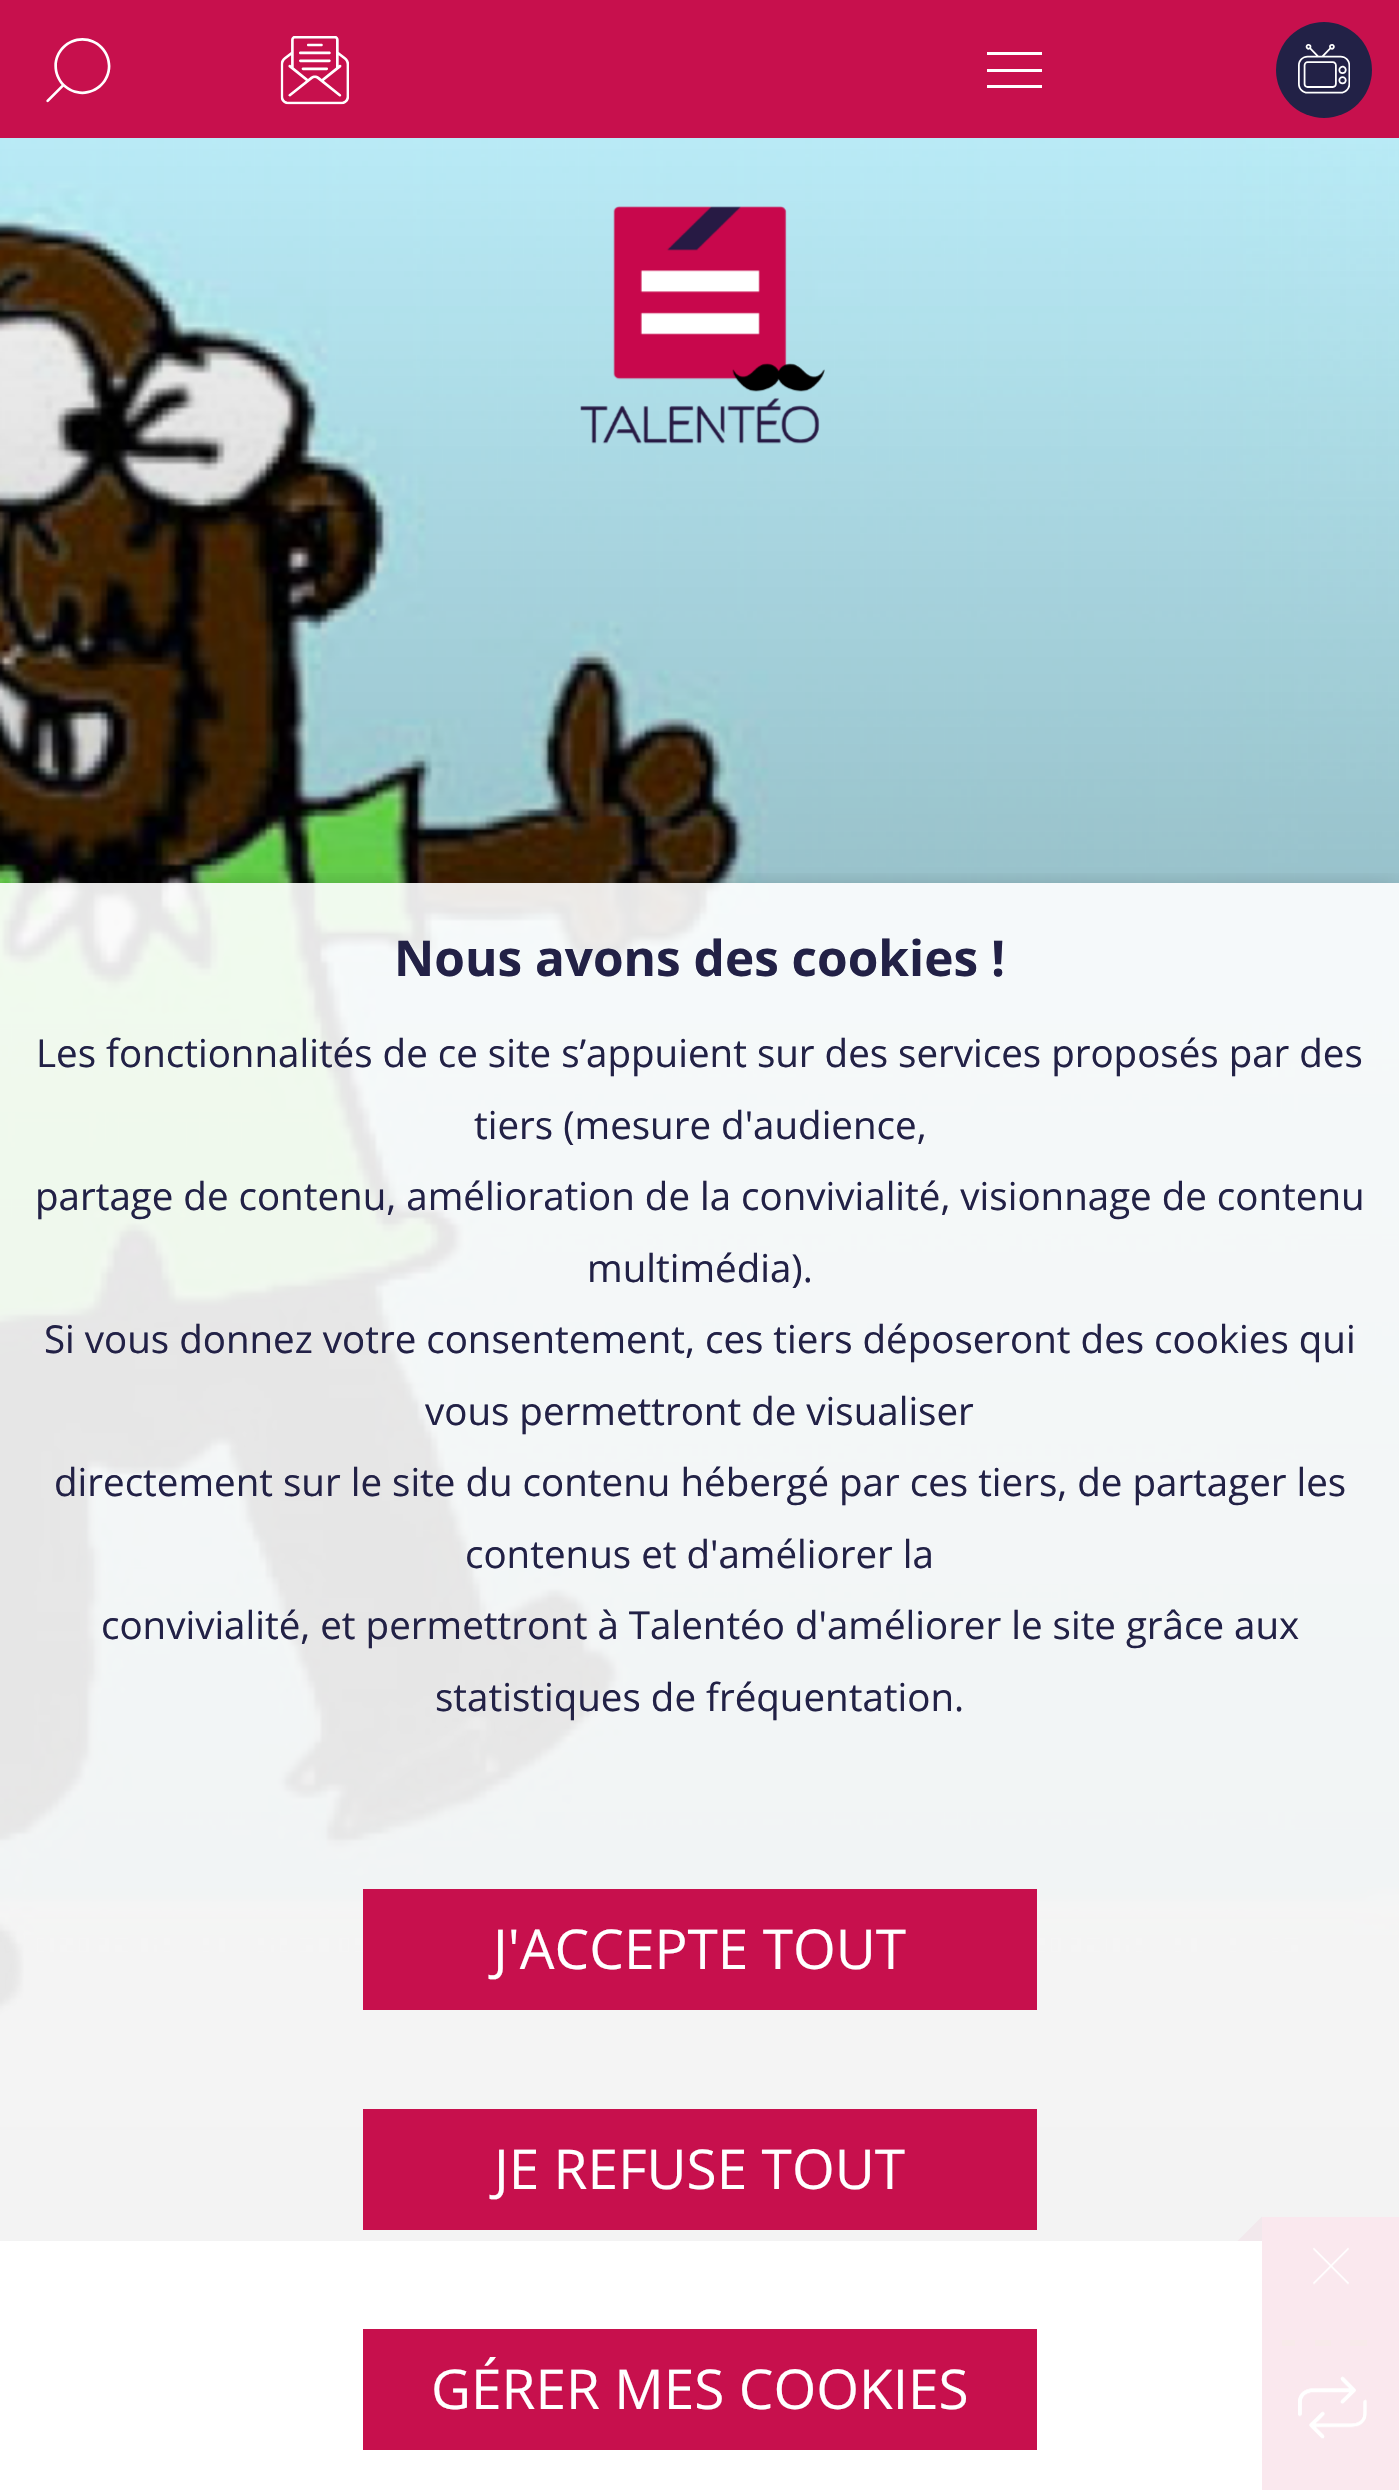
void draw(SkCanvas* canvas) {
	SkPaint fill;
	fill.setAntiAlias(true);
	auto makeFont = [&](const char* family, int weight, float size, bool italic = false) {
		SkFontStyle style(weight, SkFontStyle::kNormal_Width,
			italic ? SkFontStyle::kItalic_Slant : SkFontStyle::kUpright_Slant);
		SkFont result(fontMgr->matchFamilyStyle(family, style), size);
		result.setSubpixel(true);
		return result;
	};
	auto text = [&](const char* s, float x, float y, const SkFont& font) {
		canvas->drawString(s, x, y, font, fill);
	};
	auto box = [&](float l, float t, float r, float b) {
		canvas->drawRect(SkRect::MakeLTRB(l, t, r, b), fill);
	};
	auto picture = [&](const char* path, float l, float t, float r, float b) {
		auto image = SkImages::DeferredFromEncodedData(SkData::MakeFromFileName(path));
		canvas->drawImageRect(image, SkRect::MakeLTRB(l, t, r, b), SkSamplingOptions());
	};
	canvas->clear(0xFFFFFFFF);
	fill.setColor(0xFFC7104D);
	box(0, 0, 1399, 138);
	picture("image0.png", 46, 38, 111, 103);
	picture("image1.png", 280, 36, 349, 105);
	fill.setColor(0xFFFFFFFF);
	box(987, 69, 1042, 72);
	box(987, 52, 1042, 55);
	box(987, 85, 1042, 88);
	fill.setColor(0xFF222146);
	canvas->drawCircle(1324, 70, 48, fill);
	picture("image2.png", 1298, 44, 1350, 94);
	picture("image3.png", 0, 138, 1399, 2034);
	{
		const SkColor colors[] = {0x00000000, 0x80000000};
		const float stops[] = {0, 1};
		const SkPoint ends[] = {{700, 0}, {700, 2241}};
		fill.setShader(SkGradientShader::MakeLinear(ends, colors, stops, 2, SkTileMode::kClamp));
		fill.setAlpha(255);
	}
	box(0, 138, 1399, 2241);
	fill.setShader(nullptr);
	fill.setColor(0xFF770B35);
	canvas->drawPath(SkPathBuilder().moveTo(1262, 2241).lineTo(1237.5f, 2241).lineTo(1262, 2216.5f).close().detach(), fill);
	fill.setColor(0xFFC7104D);
	box(1262, 2217, 1399, 2490);
	picture("image4.png", 1313, 2247, 1349, 2285);
	fill.setColor(0xFFB11F24);
	box(1282, 2340, 1295, 2346);
	box(1315, 2340, 1331, 2346);
	box(1350, 2340, 1367, 2346);
	picture("image5.png", 1298, 2376, 1367, 2439);
	picture("image6.png", 580, 206, 825, 444);
	canvas->save();
	canvas->clipRect(SkRect::MakeLTRB(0, 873, 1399, 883));
	fill.setColor(0x80000000);
	fill.setMaskFilter(SkMaskFilter::MakeBlur(kNormal_SkBlurStyle, 14));
	canvas->drawRect(SkRect::MakeLTRB(0, 897, 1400, 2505), fill);
	fill.setMaskFilter(nullptr);
	canvas->restore();
	fill.setColor(0xE6FFFFFF);
	box(0, 883, 1399, 2490);
	fill.setColor(0xFFC7104D);
	box(363, 1889, 1037, 2010);
	box(363, 2109, 1037, 2230);
	box(363, 2329, 1037, 2450);
	auto font1 = makeFont("Open Sans", 700, 49.5f);
	fill.setColor(0xFF222146);
	text("Nous avons des cookies !", 394, 976, font1);
	auto font2 = makeFont("Open Sans", 400, 38.5f);
	text("Les fonctionnalités de ce site s’appuient sur des services proposés par des", 36, 1067, font2);
	text("tiers (mesure d'audience,", 474, 1139, font2);
	text("partage de contenu, amélioration de la convivialité, visionnage de contenu", 35, 1210, font2);
	text("multimédia).", 587, 1282, font2);
	text("Si vous donnez votre consentement, ces tiers déposeront des cookies qui", 44, 1353, font2);
	text("vous permettront de visualiser", 425, 1425, font2);
	text("directement sur le site du contenu hébergé par ces tiers, de partager les", 54, 1496, font2);
	text("contenus et d'améliorer la", 465, 1568, font2);
	text("convivialité, et permettront à Talentéo d'améliorer le site grâce aux", 101, 1639, font2);
	text("statistiques de fréquentation.", 435, 1711, font2);
	auto font3 = makeFont("Open Sans", 400, 55);
	fill.setColor(0xFFFFFFFF);
	text("J'ACCEPTE TOUT", 493, 1969, font3);
	text("JE REFUSE TOUT", 494, 2189, font3);
	text("GÉRER MES COOKIES", 431, 2409, font3);
}
